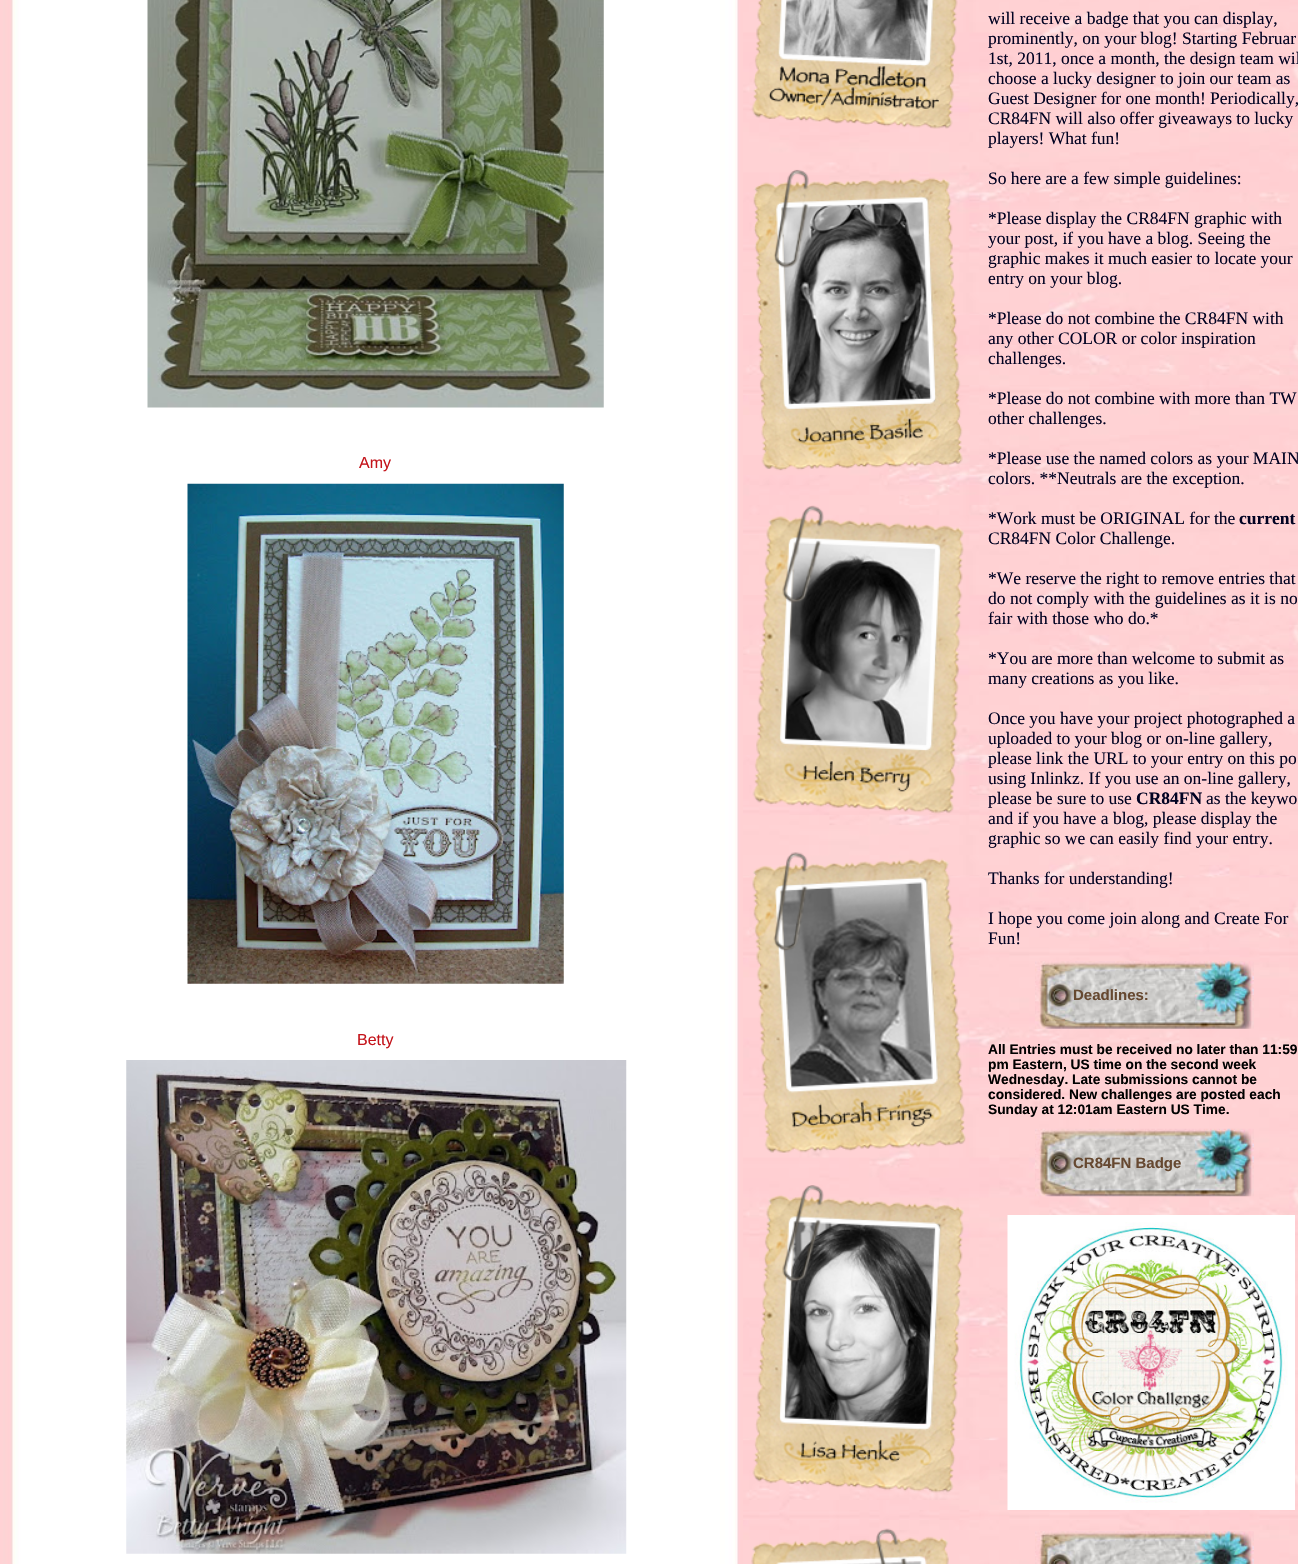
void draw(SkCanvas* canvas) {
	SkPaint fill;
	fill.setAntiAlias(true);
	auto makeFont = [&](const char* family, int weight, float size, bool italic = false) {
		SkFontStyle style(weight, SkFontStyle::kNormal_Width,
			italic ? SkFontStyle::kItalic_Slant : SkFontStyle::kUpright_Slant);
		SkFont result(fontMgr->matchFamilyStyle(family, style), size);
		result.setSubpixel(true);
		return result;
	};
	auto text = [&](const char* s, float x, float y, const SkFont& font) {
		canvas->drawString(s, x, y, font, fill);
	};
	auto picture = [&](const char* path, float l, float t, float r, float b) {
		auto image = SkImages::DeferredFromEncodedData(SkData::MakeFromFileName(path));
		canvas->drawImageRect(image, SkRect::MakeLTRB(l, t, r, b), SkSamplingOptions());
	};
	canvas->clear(0xFFFFFFFF);
	picture("image0.png", 743, 0, 1298, 1564);
	picture("image1.png", 0, 0, 743, 1564);
	picture("image2.png", 147, 0, 604, 408);
	picture("image3.png", 187, 483, 564, 984);
	picture("image4.png", 126, 1060, 627, 1554);
	picture("image5.png", 751, 0, 958, 129);
	picture("image6.png", 753, 169, 963, 471);
	picture("image7.png", 752, 505, 964, 814);
	picture("image8.png", 752, 852, 966, 1153);
	picture("image9.png", 752, 1185, 964, 1493);
	picture("image10.png", 751, 1528, 949, 1564);
	picture("image11.png", 1035, 961, 1254, 1029);
	picture("image12.png", 1035, 1128, 1254, 1197);
	picture("image13.png", 1007, 1215, 1295, 1510);
	picture("image14.png", 1035, 1531, 1254, 1564);
	auto font1 = makeFont("Liberation Sans", 400, 16);
	fill.setColor(0xFFC4141B);
	text("Amy", 359, 468, font1);
	text("Betty", 357, 1045, font1);
	auto font2 = makeFont("Liberation Serif", 400, 17.5f);
	fill.setColor(0xFF010222);
	text("will receive a badge that you can display,", 988, 24, font2);
	text("prominently, on your blog! Starting Februar", 988, 44, font2);
	text("1st, 2011, once a month, the design team wil", 988, 64, font2);
	text("choose a lucky designer to join our team as", 988, 84, font2);
	text("Guest Designer for one month! Periodically,", 988, 104, font2);
	text("CR84FN will also offer giveaways to lucky", 988, 124, font2);
	text("players! What fun!", 988, 144, font2);
	text("So here are a few simple guidelines:", 988, 184, font2);
	text("*Please display the CR84FN graphic with", 988, 224, font2);
	canvas->save();
	canvas->clipRect(SkRect::MakeLTRB(988, 0, 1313, 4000));
	text("your post, if you have a blog. Seeing the", 988, 244, font2);
	canvas->restore();
	text("graphic makes it much easier to locate your", 988, 264, font2);
	text("entry on your blog.", 988, 284, font2);
	text("*Please do not combine the CR84FN with", 988, 324, font2);
	text("any other COLOR or color inspiration", 988, 344, font2);
	text("challenges.", 988, 364, font2);
	text("*Please do not combine with more than TW", 988, 404, font2);
	text("other challenges.", 988, 424, font2);
	text("*Please use the named colors as your MAIN", 988, 464, font2);
	text("colors. **Neutrals are the exception.", 988, 484, font2);
	text("*Work must be ORIGINAL for the", 988, 524, font2);
	auto font3 = makeFont("Liberation Serif", 700, 17.5f);
	text("current", 1239, 524, font3);
	text("CR84FN Color Challenge.", 988, 544, font2);
	text("*We reserve the right to remove entries that", 988, 584, font2);
	text("do not comply with the guidelines as it is no", 988, 604, font2);
	text("fair with those who do.*", 988, 624, font2);
	text("*You are more than welcome to submit as", 988, 664, font2);
	text("many creations as you like.", 988, 684, font2);
	text("Once you have your project photographed a", 988, 724, font2);
	text("uploaded to your blog or on-line gallery,", 988, 744, font2);
	text("please link the URL to your entry on this po", 988, 764, font2);
	text("using Inlinkz. If you use an on-line gallery,", 988, 784, font2);
	text("please be sure to use", 988, 804, font2);
	text("CR84FN", 1136, 804, font3);
	text("as the keywo", 1206, 804, font2);
	text("and if you have a blog, please display the", 988, 824, font2);
	text("graphic so we can easily find your entry.", 988, 844, font2);
	canvas->save();
	canvas->clipRect(SkRect::MakeLTRB(988, 0, 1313, 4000));
	text("Thanks for understanding!", 988, 884, font2);
	canvas->restore();
	text("I hope you come join along and Create For", 988, 924, font2);
	text("Fun!", 988, 944, font2);
	auto font4 = makeFont("Liberation Sans", 700, 15);
	fill.setColor(0xFF664830);
	text("Deadlines:", 1073, 1000, font4);
	auto font5 = makeFont("Liberation Sans", 700, 13.75f);
	fill.setColor(0xFF000000);
	text("All Entries must be received no later than 11:59", 988, 1054, font5);
	text("pm Eastern, US time on the second week", 988, 1069, font5);
	text("Wednesday. Late submissions cannot be", 988, 1084, font5);
	text("considered. New challenges are posted each", 988, 1099, font5);
	text("Sunday at 12:01am Eastern US Time.", 988, 1114, font5);
	fill.setColor(0xFF664830);
	text("CR84FN Badge", 1073, 1168, font4);
}
